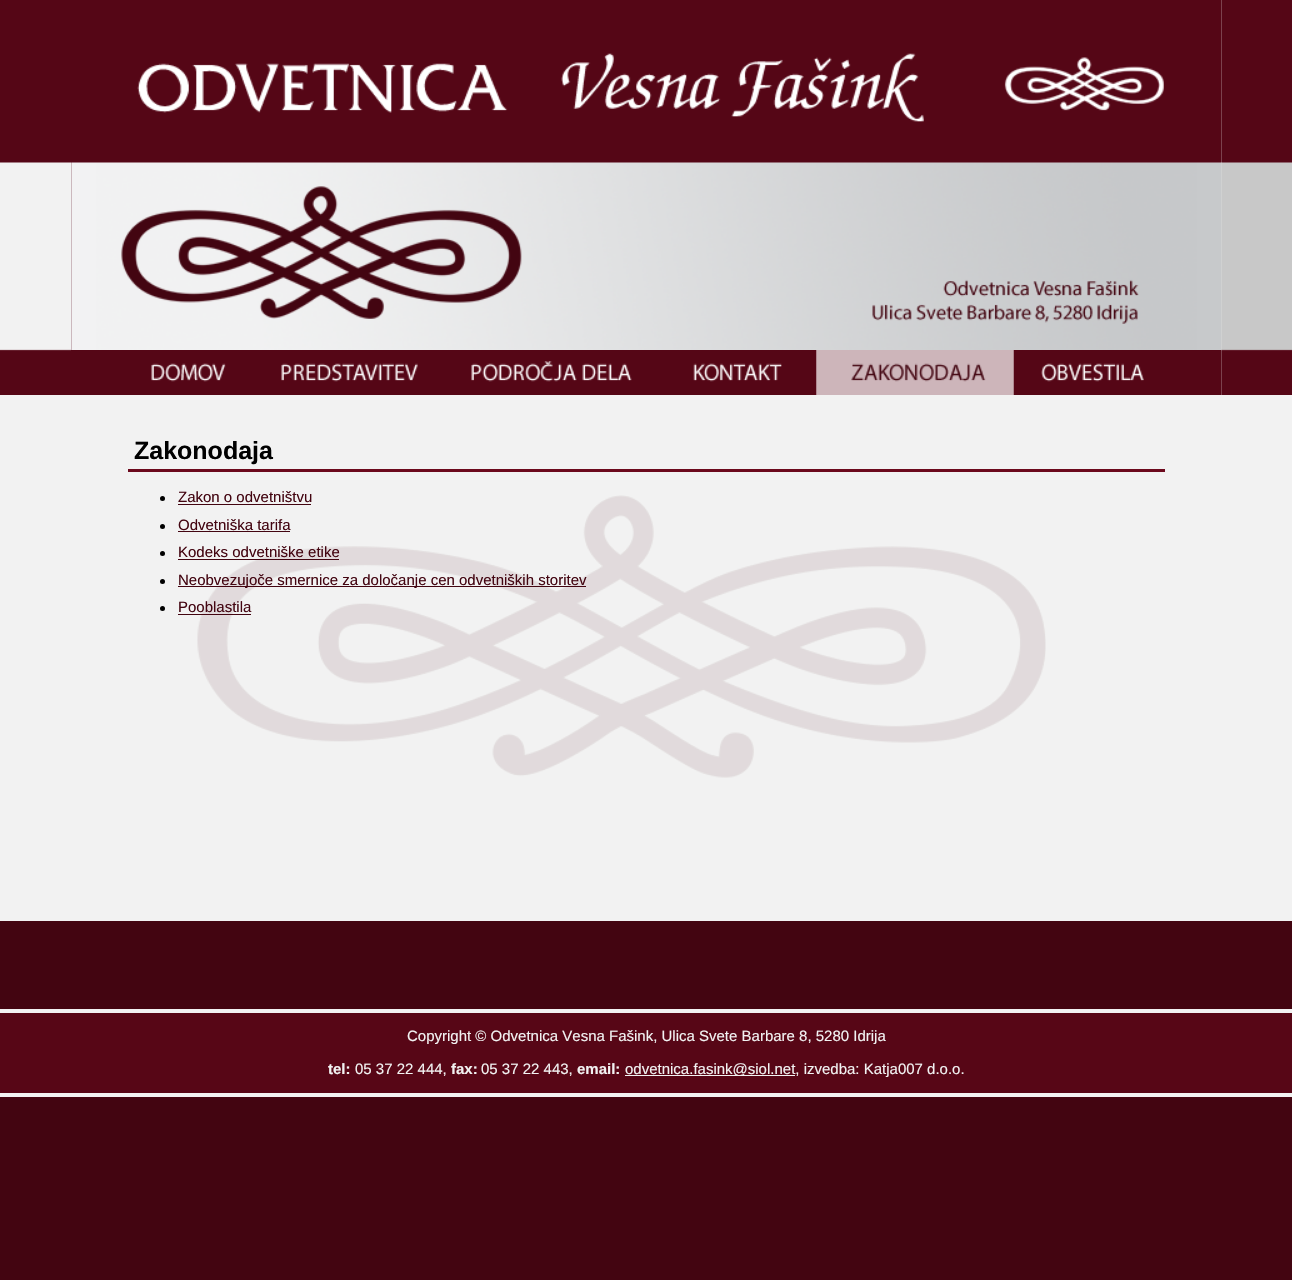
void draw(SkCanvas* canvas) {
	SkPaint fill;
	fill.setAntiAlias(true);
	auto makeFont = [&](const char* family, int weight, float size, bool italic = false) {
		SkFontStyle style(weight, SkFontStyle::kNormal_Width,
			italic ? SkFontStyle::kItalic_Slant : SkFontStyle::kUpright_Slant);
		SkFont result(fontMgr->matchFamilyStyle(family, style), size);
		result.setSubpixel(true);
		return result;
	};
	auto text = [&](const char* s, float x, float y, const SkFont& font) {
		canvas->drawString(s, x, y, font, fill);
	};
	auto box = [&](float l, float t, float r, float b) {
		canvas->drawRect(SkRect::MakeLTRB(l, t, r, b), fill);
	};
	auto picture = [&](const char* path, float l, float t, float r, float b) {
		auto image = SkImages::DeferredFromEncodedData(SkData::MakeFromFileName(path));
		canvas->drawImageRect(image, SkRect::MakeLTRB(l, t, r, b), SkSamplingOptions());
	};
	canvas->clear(0xFF430511);
	fill.setColor(0xFFF2F2F2);
	box(0, 0, 1292, 921);
	box(0, 1093, 1292, 1097);
	picture("image0.png", 0, 0, 71, 395);
	picture("image1.png", 1221, 0, 1292, 395);
	fill.setColor(0xFF550616);
	box(71, 0, 1221, 395);
	picture("image2.png", 137, 53, 1164, 122);
	picture("image3.png", 71, 162, 1222, 350);
	picture("image4.png", 151, 363, 226, 382);
	picture("image5.png", 281, 363, 418, 382);
	picture("image6.png", 471, 361, 632, 382);
	picture("image7.png", 693, 363, 782, 382);
	picture("image8.png", 816, 350, 1014, 395);
	picture("image9.png", 1041, 363, 1144, 382);
	picture("image10.png", 197, 495, 1046, 778);
	fill.setColor(0xFF6C091D);
	box(128, 469, 1165, 472);
	fill.setColor(0xFF000000);
	canvas->drawCircle(162.5f, 498.5f, 2.5f, fill);
	fill.setColor(0xFF430511);
	box(178, 504, 311, 505);
	fill.setColor(0xFF000000);
	canvas->drawCircle(162.5f, 526.5f, 2.5f, fill);
	fill.setColor(0xFF430511);
	box(178, 531, 290, 532);
	fill.setColor(0xFF000000);
	canvas->drawCircle(162.5f, 553.5f, 2.5f, fill);
	fill.setColor(0xFF430511);
	box(178, 559, 339, 560);
	fill.setColor(0xFF000000);
	canvas->drawCircle(162.5f, 581.5f, 2.5f, fill);
	fill.setColor(0xFF430511);
	box(178, 586, 586, 587);
	fill.setColor(0xFF000000);
	canvas->drawCircle(162.5f, 608.5f, 2.5f, fill);
	fill.setColor(0xFF430511);
	box(178, 614, 251, 615);
	fill.setColor(0xFFF2F2F2);
	box(0, 1009, 1292, 1013);
	fill.setColor(0xFF570616);
	box(0, 1013, 1292, 1093);
	fill.setColor(0xFFF2F2F2);
	box(625, 1075, 795, 1076);
	auto font1 = makeFont("Liberation Sans", 700, 25);
	fill.setColor(0xFF000000);
	text("Zakonodaja", 134, 459, font1);
	auto font2 = makeFont("Liberation Sans", 400, 15);
	fill.setColor(0xFF430511);
	text("Zakon o odvetništvu", 178, 502, font2);
	text("Odvetniška tarifa", 178, 530, font2);
	text("Kodeks odvetniške etike", 178, 557, font2);
	text("Neobvezujoče smernice za določanje cen odvetniških storitev", 178, 585, font2);
	text("Pooblastila", 178, 612, font2);
	fill.setColor(0xFFF2F2F2);
	text("Copyright © Odvetnica Vesna Fašink, Ulica Svete Barbare 8, 5280 Idrija", 407, 1041, font2);
	auto font3 = makeFont("Liberation Sans", 700, 15);
	text("tel:", 328, 1074, font3);
	text("05 37 22 444,", 355, 1074, font2);
	text("fax:", 451, 1074, font3);
	text("05 37 22 443,", 481, 1074, font2);
	text("email:", 577, 1074, font3);
	text("odvetnica.fasink@siol.net, izvedba: Katja007 d.o.o.", 625, 1074, font2);
}
